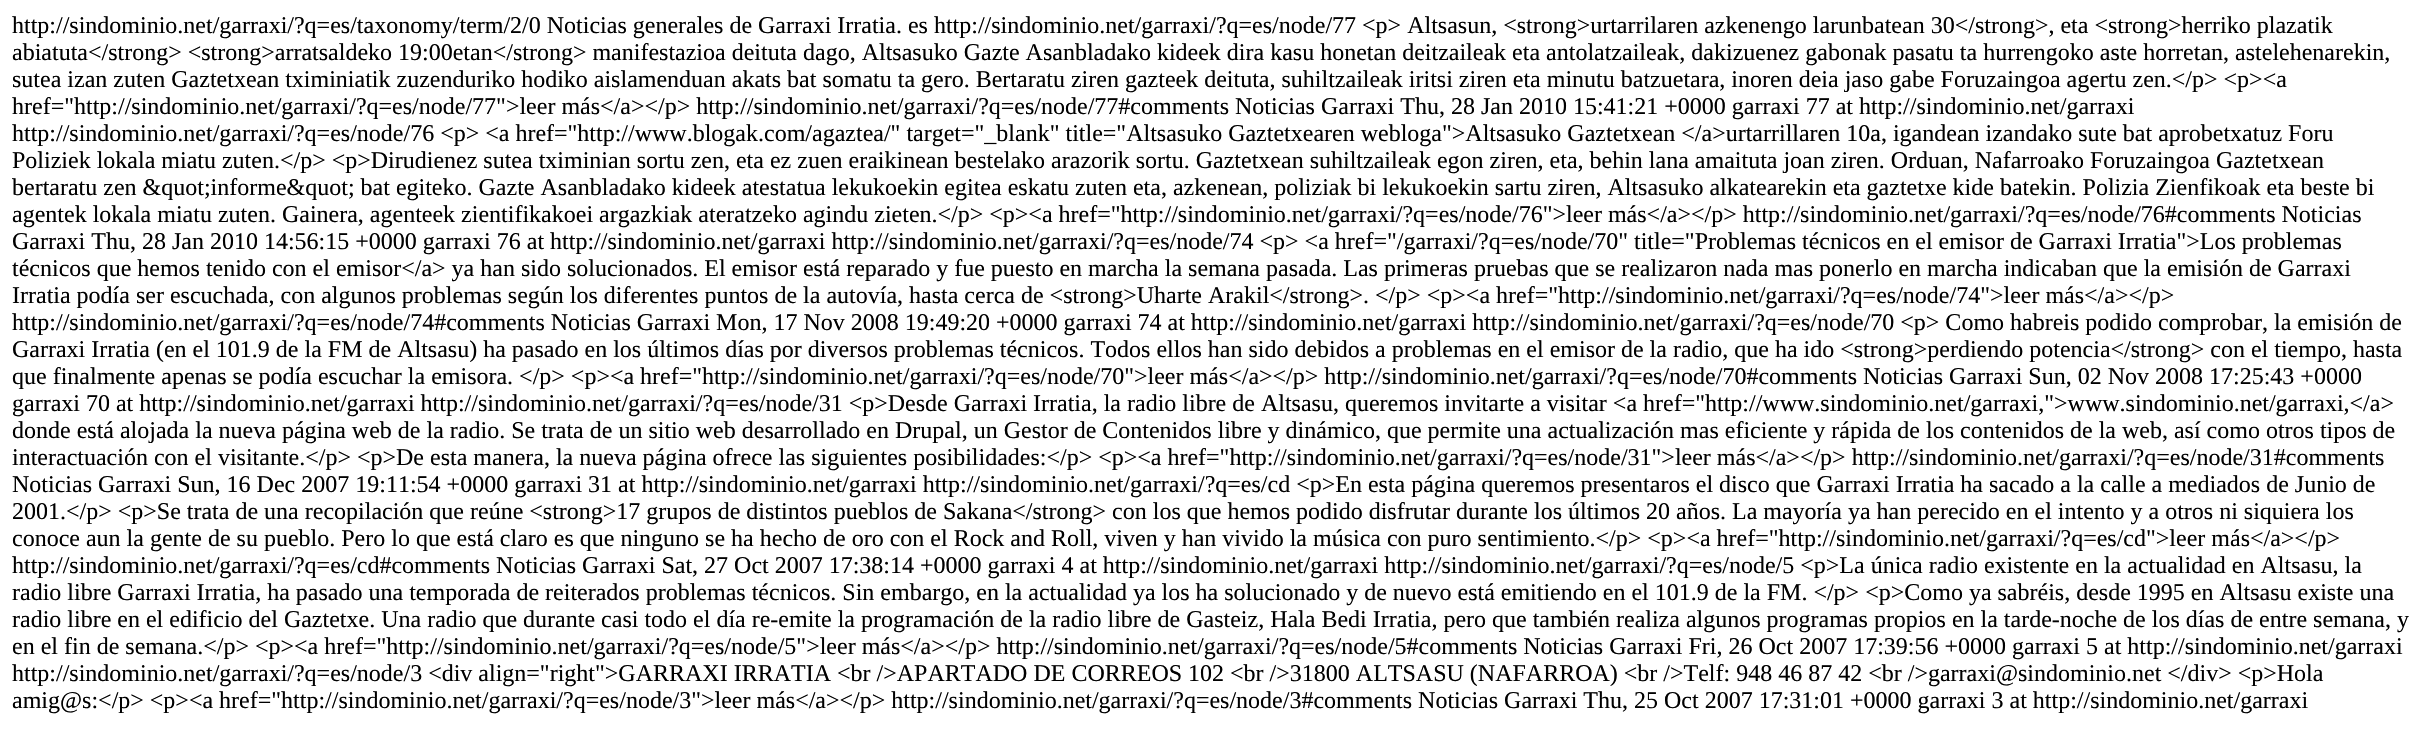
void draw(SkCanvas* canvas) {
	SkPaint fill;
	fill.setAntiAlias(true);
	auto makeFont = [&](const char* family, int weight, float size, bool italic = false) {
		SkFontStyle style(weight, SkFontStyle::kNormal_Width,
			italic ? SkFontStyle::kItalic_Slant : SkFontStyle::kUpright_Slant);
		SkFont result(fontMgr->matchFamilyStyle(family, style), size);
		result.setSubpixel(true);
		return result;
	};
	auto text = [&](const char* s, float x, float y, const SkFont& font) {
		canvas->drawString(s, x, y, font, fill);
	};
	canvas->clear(0xFFFFFFFF);
	auto font1 = makeFont("Liberation Serif", 400, 24);
	fill.setColor(0xFF000000);
	text("http://sindominio.net/garraxi/?q=es/taxonomy/term/2/0 Noticias generales de Garraxi Irratia. es http://sindominio.net/garraxi/?q=es/node/77 <p> Altsasun, <strong>urtarrilaren azkenengo larunbatean 30</strong>, eta <strong>herriko plazatik", 12, 33, font1);
	text("abiatuta</strong> <strong>arratsaldeko 19:00etan</strong> manifestazioa deituta dago, Altsasuko Gazte Asanbladako kideek dira kasu honetan deitzaileak eta antolatzaileak, dakizuenez gabonak pasatu ta hurrengoko aste horretan, astelehenarekin,", 12, 60, font1);
	text("sutea izan zuten Gaztetxean tximiniatik zuzenduriko hodiko aislamenduan akats bat somatu ta gero. Bertaratu ziren gazteek deituta, suhiltzaileak iritsi ziren eta minutu batzuetara, inoren deia jaso gabe Foruzaingoa agertu zen.</p> <p><a", 12, 87, font1);
	text("href=\"http://sindominio.net/garraxi/?q=es/node/77\">leer más</a></p> http://sindominio.net/garraxi/?q=es/node/77#comments Noticias Garraxi Thu, 28 Jan 2010 15:41:21 +0000 garraxi 77 at http://sindominio.net/garraxi", 12, 114, font1);
	text("http://sindominio.net/garraxi/?q=es/node/76 <p> <a href=\"http://www.blogak.com/agaztea/\" target=\"_blank\" title=\"Altsasuko Gaztetxearen webloga\">Altsasuko Gaztetxean </a>urtarrillaren 10a, igandean izandako sute bat aprobetxatuz Foru", 12, 141, font1);
	text("Poliziek lokala miatu zuten.</p> <p>Dirudienez sutea tximinian sortu zen, eta ez zuen eraikinean bestelako arazorik sortu. Gaztetxean suhiltzaileak egon ziren, eta, behin lana amaituta joan ziren. Orduan, Nafarroako Foruzaingoa Gaztetxean", 12, 168, font1);
	text("bertaratu zen &quot;informe&quot; bat egiteko. Gazte Asanbladako kideek atestatua lekukoekin egitea eskatu zuten eta, azkenean, poliziak bi lekukoekin sartu ziren, Altsasuko alkatearekin eta gaztetxe kide batekin. Polizia Zienfikoak eta beste bi", 12, 195, font1);
	text("agentek lokala miatu zuten. Gainera, agenteek zientifikakoei argazkiak ateratzeko agindu zieten.</p> <p><a href=\"http://sindominio.net/garraxi/?q=es/node/76\">leer más</a></p> http://sindominio.net/garraxi/?q=es/node/76#comments Noticias", 12, 222, font1);
	text("Garraxi Thu, 28 Jan 2010 14:56:15 +0000 garraxi 76 at http://sindominio.net/garraxi http://sindominio.net/garraxi/?q=es/node/74 <p> <a href=\"/garraxi/?q=es/node/70\" title=\"Problemas técnicos en el emisor de Garraxi Irratia\">Los problemas", 12, 249, font1);
	text("técnicos que hemos tenido con el emisor</a> ya han sido solucionados. El emisor está reparado y fue puesto en marcha la semana pasada. Las primeras pruebas que se realizaron nada mas ponerlo en marcha indicaban que la emisión de Garraxi", 12, 276, font1);
	text("Irratia podía ser escuchada, con algunos problemas según los diferentes puntos de la autovía, hasta cerca de <strong>Uharte Arakil</strong>. </p> <p><a href=\"http://sindominio.net/garraxi/?q=es/node/74\">leer más</a></p>", 12, 303, font1);
	text("http://sindominio.net/garraxi/?q=es/node/74#comments Noticias Garraxi Mon, 17 Nov 2008 19:49:20 +0000 garraxi 74 at http://sindominio.net/garraxi http://sindominio.net/garraxi/?q=es/node/70 <p> Como habreis podido comprobar, la emisión de", 12, 330, font1);
	text("Garraxi Irratia (en el 101.9 de la FM de Altsasu) ha pasado en los últimos días por diversos problemas técnicos. Todos ellos han sido debidos a problemas en el emisor de la radio, que ha ido <strong>perdiendo potencia</strong> con el tiempo, hasta", 12, 357, font1);
	text("que finalmente apenas se podía escuchar la emisora. </p> <p><a href=\"http://sindominio.net/garraxi/?q=es/node/70\">leer más</a></p> http://sindominio.net/garraxi/?q=es/node/70#comments Noticias Garraxi Sun, 02 Nov 2008 17:25:43 +0000", 12, 384, font1);
	text("garraxi 70 at http://sindominio.net/garraxi http://sindominio.net/garraxi/?q=es/node/31 <p>Desde Garraxi Irratia, la radio libre de Altsasu, queremos invitarte a visitar <a href=\"http://www.sindominio.net/garraxi,\">www.sindominio.net/garraxi,</a>", 12, 411, font1);
	text("donde está alojada la nueva página web de la radio. Se trata de un sitio web desarrollado en Drupal, un Gestor de Contenidos libre y dinámico, que permite una actualización mas eficiente y rápida de los contenidos de la web, así como otros tipos de", 12, 438, font1);
	text("interactuación con el visitante.</p> <p>De esta manera, la nueva página ofrece las siguientes posibilidades:</p> <p><a href=\"http://sindominio.net/garraxi/?q=es/node/31\">leer más</a></p> http://sindominio.net/garraxi/?q=es/node/31#comments", 12, 465, font1);
	text("Noticias Garraxi Sun, 16 Dec 2007 19:11:54 +0000 garraxi 31 at http://sindominio.net/garraxi http://sindominio.net/garraxi/?q=es/cd <p>En esta página queremos presentaros el disco que Garraxi Irratia ha sacado a la calle a mediados de Junio de", 12, 492, font1);
	text("2001.</p> <p>Se trata de una recopilación que reúne <strong>17 grupos de distintos pueblos de Sakana</strong> con los que hemos podido disfrutar durante los últimos 20 años. La mayoría ya han perecido en el intento y a otros ni siquiera los", 12, 519, font1);
	text("conoce aun la gente de su pueblo. Pero lo que está claro es que ninguno se ha hecho de oro con el Rock and Roll, viven y han vivido la música con puro sentimiento.</p> <p><a href=\"http://sindominio.net/garraxi/?q=es/cd\">leer más</a></p>", 12, 546, font1);
	text("http://sindominio.net/garraxi/?q=es/cd#comments Noticias Garraxi Sat, 27 Oct 2007 17:38:14 +0000 garraxi 4 at http://sindominio.net/garraxi http://sindominio.net/garraxi/?q=es/node/5 <p>La única radio existente en la actualidad en Altsasu, la", 12, 573, font1);
	text("radio libre Garraxi Irratia, ha pasado una temporada de reiterados problemas técnicos. Sin embargo, en la actualidad ya los ha solucionado y de nuevo está emitiendo en el 101.9 de la FM. </p> <p>Como ya sabréis, desde 1995 en Altsasu existe una", 12, 600, font1);
	text("radio libre en el edificio del Gaztetxe. Una radio que durante casi todo el día re-emite la programación de la radio libre de Gasteiz, Hala Bedi Irratia, pero que también realiza algunos programas propios en la tarde-noche de los días de entre semana, y", 12, 627, font1);
	text("en el fin de semana.</p> <p><a href=\"http://sindominio.net/garraxi/?q=es/node/5\">leer más</a></p> http://sindominio.net/garraxi/?q=es/node/5#comments Noticias Garraxi Fri, 26 Oct 2007 17:39:56 +0000 garraxi 5 at http://sindominio.net/garraxi", 12, 654, font1);
	text("http://sindominio.net/garraxi/?q=es/node/3 <div align=\"right\">GARRAXI IRRATIA <br />APARTADO DE CORREOS 102 <br />31800 ALTSASU (NAFARROA) <br />Telf: 948 46 87 42 <br />garraxi@sindominio.net </div> <p>Hola", 12, 681, font1);
	text("amig@s:</p> <p><a href=\"http://sindominio.net/garraxi/?q=es/node/3\">leer más</a></p> http://sindominio.net/garraxi/?q=es/node/3#comments Noticias Garraxi Thu, 25 Oct 2007 17:31:01 +0000 garraxi 3 at http://sindominio.net/garraxi", 12, 708, font1);
}
